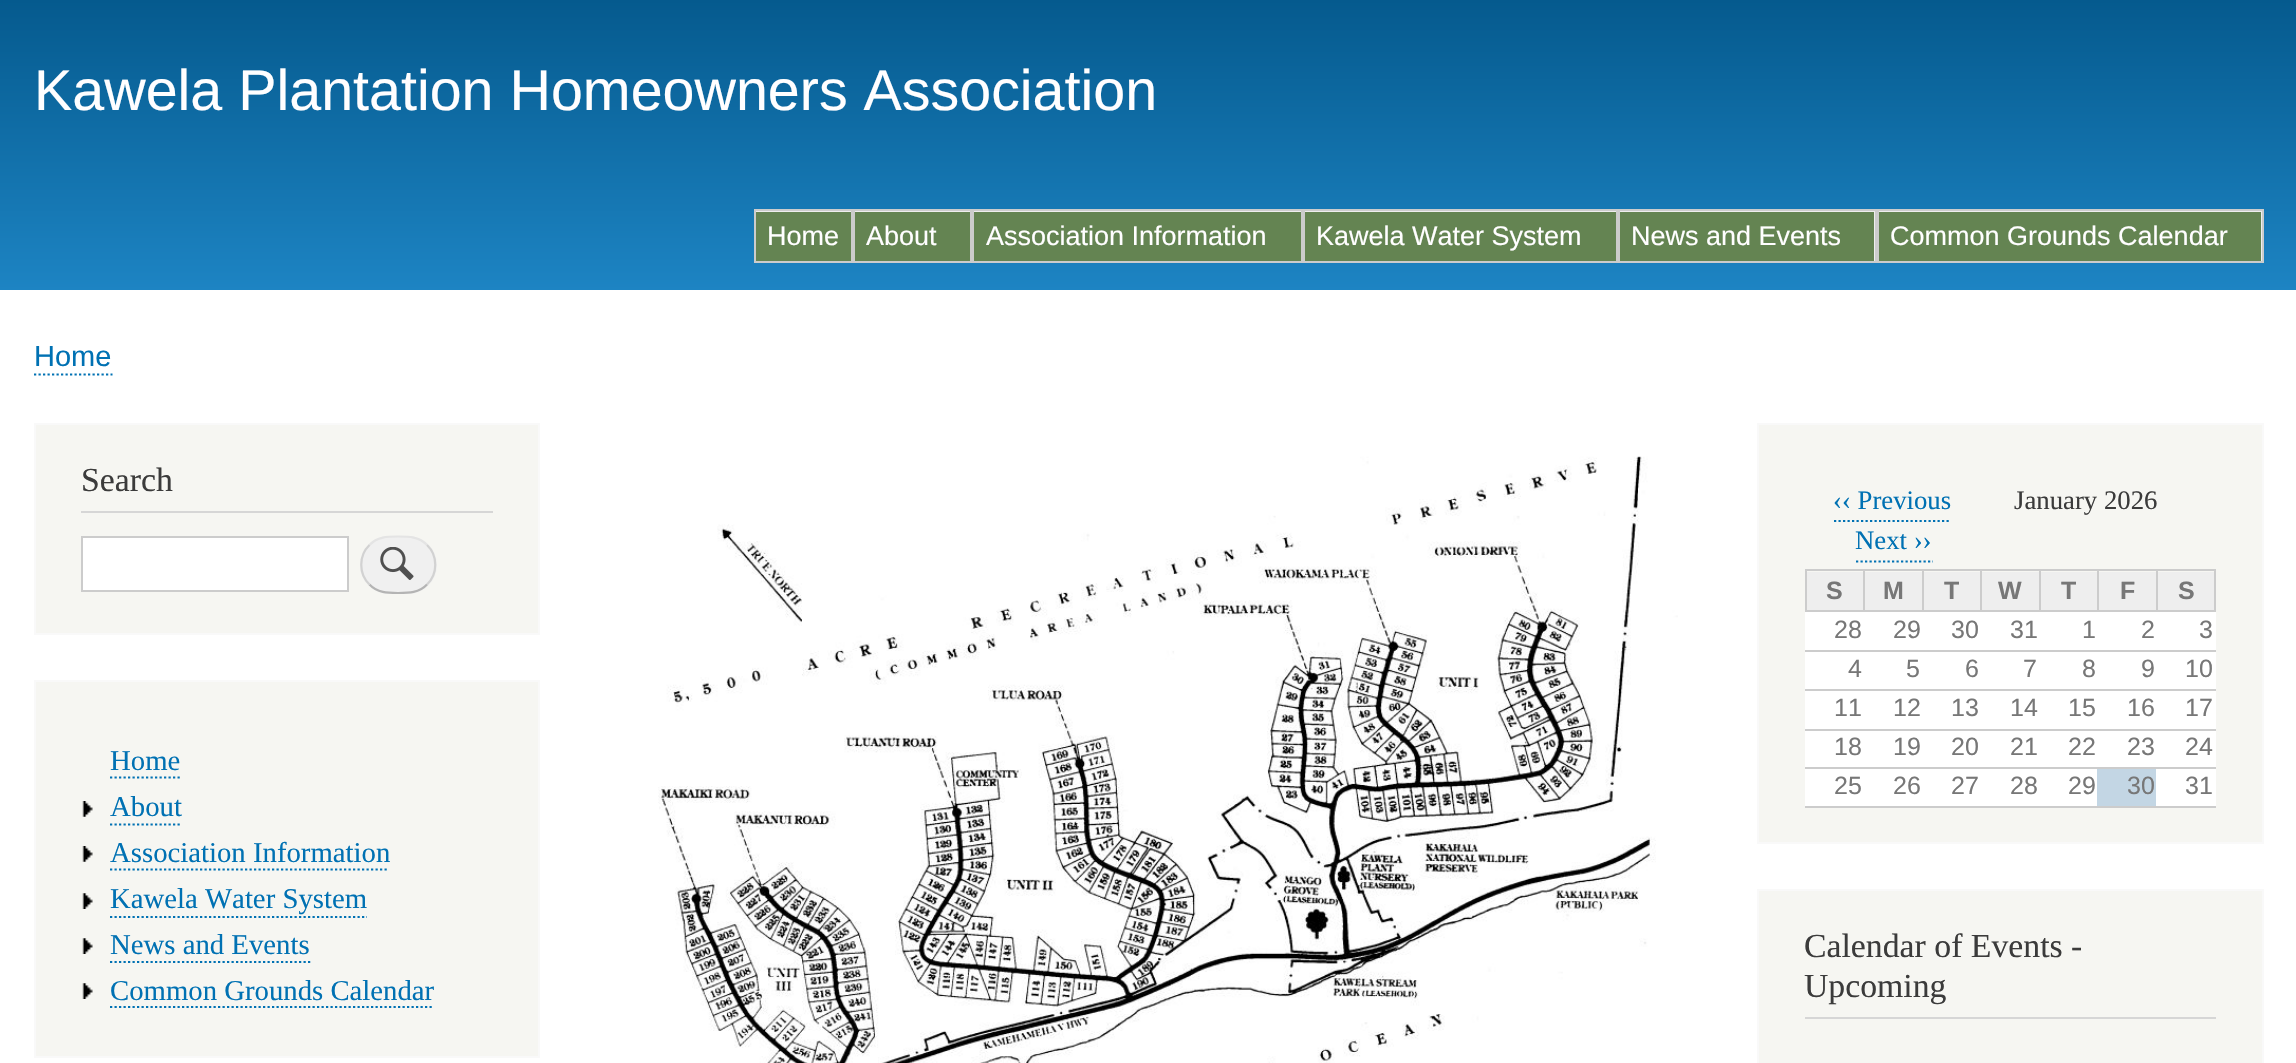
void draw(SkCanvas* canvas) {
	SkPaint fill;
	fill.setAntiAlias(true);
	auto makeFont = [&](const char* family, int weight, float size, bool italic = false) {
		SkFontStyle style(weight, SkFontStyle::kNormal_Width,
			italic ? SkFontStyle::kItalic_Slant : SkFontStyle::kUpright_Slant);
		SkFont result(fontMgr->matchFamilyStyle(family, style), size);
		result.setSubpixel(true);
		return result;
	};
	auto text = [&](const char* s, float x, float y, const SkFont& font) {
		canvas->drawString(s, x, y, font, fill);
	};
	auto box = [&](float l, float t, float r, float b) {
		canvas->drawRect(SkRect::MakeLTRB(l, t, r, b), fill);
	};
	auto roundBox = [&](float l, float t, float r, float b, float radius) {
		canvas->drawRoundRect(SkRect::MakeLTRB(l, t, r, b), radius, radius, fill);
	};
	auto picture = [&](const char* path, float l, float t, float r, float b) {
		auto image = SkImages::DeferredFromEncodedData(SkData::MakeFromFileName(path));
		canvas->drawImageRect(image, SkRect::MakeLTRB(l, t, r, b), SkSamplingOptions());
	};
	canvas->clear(0xFFFFFFFF);
	{
		const SkColor colors[] = {0xFF055A8E, 0xFF1D84C3};
		const float stops[] = {0, 1};
		const SkPoint ends[] = {{1149, 0}, {1149, 290}};
		fill.setShader(SkGradientShader::MakeLinear(ends, colors, stops, 2, SkTileMode::kClamp));
		fill.setAlpha(255);
	}
	box(0, 0, 2296, 290);
	fill.setShader(nullptr);
	fill.setColor(0xFFEEEEEE);
	box(756, 211, 851, 212);
	fill.setStyle(SkPaint::kStroke_Style);
	fill.setStrokeWidth(2);
	fill.setColor(0xFFCCCCCC);
	canvas->drawRect(SkRect::MakeLTRB(755, 210, 852, 262), fill);
	fill.setStyle(SkPaint::kFill_Style);
	fill.setColor(0xFF648452);
	box(756, 212, 851, 261);
	fill.setColor(0xFFEEEEEE);
	box(855, 211, 970, 212);
	fill.setStyle(SkPaint::kStroke_Style);
	fill.setColor(0xFFCCCCCC);
	canvas->drawRect(SkRect::MakeLTRB(854, 210, 971, 262), fill);
	fill.setStyle(SkPaint::kFill_Style);
	fill.setColor(0xFF648452);
	box(855, 212, 970, 261);
	fill.setColor(0xFFEEEEEE);
	box(974, 211, 1301, 212);
	fill.setStyle(SkPaint::kStroke_Style);
	fill.setColor(0xFFCCCCCC);
	canvas->drawRect(SkRect::MakeLTRB(973, 210, 1302, 262), fill);
	fill.setStyle(SkPaint::kFill_Style);
	fill.setColor(0xFF648452);
	box(974, 212, 1301, 261);
	fill.setColor(0xFFEEEEEE);
	box(1305, 211, 1616, 212);
	fill.setStyle(SkPaint::kStroke_Style);
	fill.setColor(0xFFCCCCCC);
	canvas->drawRect(SkRect::MakeLTRB(1304, 210, 1617, 262), fill);
	fill.setStyle(SkPaint::kFill_Style);
	fill.setColor(0xFF648452);
	box(1305, 212, 1616, 261);
	fill.setColor(0xFFEEEEEE);
	canvas->drawRect(SkRect::MakeLTRB(1619, 210, 1876, 262), fill);
	fill.setStyle(SkPaint::kStroke_Style);
	fill.setColor(0xFFCCCCCC);
	canvas->drawRect(SkRect::MakeLTRB(1619, 210, 1876, 262), fill);
	fill.setStyle(SkPaint::kFill_Style);
	fill.setColor(0xFF648452);
	box(1620, 212, 1874, 261);
	fill.setColor(0xFFEEEEEE);
	canvas->drawRect(SkRect::MakeLTRB(1878, 210, 2263, 262), fill);
	fill.setStyle(SkPaint::kStroke_Style);
	fill.setColor(0xFFCCCCCC);
	canvas->drawRect(SkRect::MakeLTRB(1878, 210, 2263, 262), fill);
	fill.setStyle(SkPaint::kFill_Style);
	fill.setColor(0xFF648452);
	box(1879, 212, 2261, 261);
	fill.setStyle(SkPaint::kStroke_Style);
	fill.setStrokeWidth(2.2f);
	fill.setColor(0xFF0071B3);
	fill.setPathEffect(SkDashPathEffect::Make({{2.25f, 2.25f}}, 0));
	canvas->drawPath(SkPathBuilder().moveTo(34, 374.5f).lineTo(112.5f, 374.5f).detach(), fill);
	fill.setPathEffect(nullptr);
	fill.setStyle(SkPaint::kFill_Style);
	fill.setColor(0xFFF6F6F2);
	canvas->drawRect(SkRect::MakeLTRB(35, 424, 539, 634), fill);
	fill.setStyle(SkPaint::kStroke_Style);
	fill.setStrokeWidth(2);
	fill.setColor(0xFFF9F9F9);
	canvas->drawRect(SkRect::MakeLTRB(35, 424, 539, 634), fill);
	fill.setStyle(SkPaint::kFill_Style);
	fill.setColor(0xFFD6D6D6);
	box(81, 511, 493, 513);
	fill.setColor(0xFFFFFFFF);
	canvas->drawRect(SkRect::MakeLTRB(82, 537, 348, 591), fill);
	fill.setStyle(SkPaint::kStroke_Style);
	fill.setColor(0xFFCCCCCC);
	canvas->drawRect(SkRect::MakeLTRB(82, 537, 348, 591), fill);
	fill.setStyle(SkPaint::kFill_Style);
	fill.setColor(0xFFF0F0F0);
	roundBox(360, 536, 437, 594, 29);
	picture("image0.png", 380, 547, 414, 580);
	fill.setStyle(SkPaint::kStroke_Style);
	fill.setStrokeWidth(2.2f);
	fill.setColor(0xFFE4E4E4);
	canvas->drawPath(SkPathBuilder().moveTo(369.5f, 545).cubicTo(377.5f, 536.5f, 387.5f, 536.5f, 398, 536.5f).cubicTo(409, 536.5f, 419, 536.5f, 427, 545).detach(), fill);
	fill.setColor(0xFFD2D2D2);
	canvas->drawPath(SkPathBuilder().moveTo(427, 545).cubicTo(438, 555.5f, 438, 574, 427, 584.5f).detach(), fill);
	fill.setColor(0xFFB4B4B4);
	canvas->drawPath(SkPathBuilder().moveTo(427, 584.5f).cubicTo(419, 593, 409, 593, 398, 593).cubicTo(387.5f, 593, 377.5f, 593, 369.5f, 584.5f).detach(), fill);
	fill.setColor(0xFFD2D2D2);
	canvas->drawPath(SkPathBuilder().moveTo(369.5f, 584.5f).cubicTo(358.5f, 574, 358.5f, 555.5f, 369.5f, 545).detach(), fill);
	fill.setStyle(SkPaint::kFill_Style);
	fill.setColor(0xFFF6F6F2);
	canvas->drawRect(SkRect::MakeLTRB(35, 681, 539, 1057), fill);
	fill.setStyle(SkPaint::kStroke_Style);
	fill.setStrokeWidth(2);
	fill.setColor(0xFFF9F9F9);
	canvas->drawRect(SkRect::MakeLTRB(35, 681, 539, 1057), fill);
	fill.setStrokeWidth(2.2f);
	fill.setColor(0xFF0071B3);
	fill.setPathEffect(SkDashPathEffect::Make({{2.25f, 2.25f}}, 0));
	canvas->drawPath(SkPathBuilder().moveTo(110, 777.5f).lineTo(180, 777.5f).detach(), fill);
	fill.setPathEffect(nullptr);
	picture("image1.png", 82, 801, 93, 817);
	fill.setPathEffect(SkDashPathEffect::Make({{2.25f, 2.25f}}, 0));
	canvas->drawPath(SkPathBuilder().moveTo(110, 824.5f).lineTo(182, 824.5f).detach(), fill);
	fill.setPathEffect(nullptr);
	picture("image1.png", 82, 846, 93, 862);
	fill.setPathEffect(SkDashPathEffect::Make({{2.25f, 2.25f}}, 0));
	canvas->drawPath(SkPathBuilder().moveTo(110, 869.5f).lineTo(389, 869.5f).detach(), fill);
	fill.setPathEffect(nullptr);
	picture("image2.png", 82, 893, 93, 909);
	fill.setPathEffect(SkDashPathEffect::Make({{2.25f, 2.25f}}, 0));
	canvas->drawPath(SkPathBuilder().moveTo(110, 917).lineTo(367, 917).detach(), fill);
	fill.setPathEffect(nullptr);
	picture("image2.png", 82, 938, 93, 954);
	fill.setPathEffect(SkDashPathEffect::Make({{2.25f, 2.25f}}, 0));
	canvas->drawPath(SkPathBuilder().moveTo(110, 962).lineTo(310.5f, 962).detach(), fill);
	fill.setPathEffect(nullptr);
	picture("image2.png", 82, 983, 93, 999);
	fill.setPathEffect(SkDashPathEffect::Make({{2.25f, 2.25f}}, 0));
	canvas->drawPath(SkPathBuilder().moveTo(110, 1007).lineTo(434, 1007).detach(), fill);
	fill.setPathEffect(nullptr);
	picture("image3.png", 658, 456, 1678, 1063);
	fill.setStyle(SkPaint::kFill_Style);
	fill.setColor(0xFFF6F6F2);
	canvas->drawRect(SkRect::MakeLTRB(1758, 424, 2263, 843), fill);
	fill.setStyle(SkPaint::kStroke_Style);
	fill.setStrokeWidth(2);
	fill.setColor(0xFFF9F9F9);
	canvas->drawRect(SkRect::MakeLTRB(1758, 424, 2263, 843), fill);
	fill.setStrokeWidth(2.2f);
	fill.setColor(0xFF0071B3);
	fill.setPathEffect(SkDashPathEffect::Make({{2.25f, 2.25f}}, 0));
	canvas->drawPath(SkPathBuilder().moveTo(1834, 521).lineTo(1951, 521).detach(), fill);
	fill.setPathEffect(nullptr);
	fill.setPathEffect(SkDashPathEffect::Make({{2.25f, 2.25f}}, 0));
	canvas->drawPath(SkPathBuilder().moveTo(1856, 561.5f).lineTo(1933, 561.5f).detach(), fill);
	fill.setPathEffect(nullptr);
	fill.setStyle(SkPaint::kFill_Style);
	fill.setColor(0xFFEEEEEE);
	box(1807, 572, 1863, 610);
	fill.setColor(0xFFCCCCCC);
	box(2156, 569, 2216, 571);
	box(2214, 569, 2216, 612);
	box(2156, 610, 2216, 612);
	box(2156, 569, 2158, 612);
	box(2097, 569, 2158, 571);
	box(2097, 610, 2158, 612);
	box(2097, 569, 2099, 612);
	box(2039, 569, 2099, 571);
	box(2039, 610, 2099, 612);
	box(2039, 569, 2041, 612);
	box(1980, 569, 2041, 571);
	box(1980, 610, 2041, 612);
	box(1980, 569, 1982, 612);
	box(1922, 569, 1982, 571);
	box(1922, 610, 1982, 612);
	box(1922, 569, 1924, 612);
	box(1863, 569, 1924, 571);
	box(1863, 610, 1924, 612);
	box(1863, 569, 1865, 612);
	box(1805, 569, 1865, 571);
	box(1805, 610, 1865, 612);
	box(1805, 569, 1807, 612);
	fill.setColor(0xFFEEEEEE);
	box(1865, 572, 1922, 610);
	box(1924, 572, 1980, 610);
	box(1982, 572, 2039, 610);
	box(2041, 572, 2097, 610);
	box(2099, 572, 2156, 610);
	box(2158, 572, 2214, 610);
	fill.setColor(0xFFFFFFFF);
	box(1805, 612, 2216, 650);
	fill.setColor(0xFFCCCCCC);
	box(1805, 650, 2216, 652);
	fill.setColor(0xFFFFFFFF);
	box(1805, 652, 2216, 689);
	fill.setColor(0xFFCCCCCC);
	box(1805, 689, 2216, 691);
	fill.setColor(0xFFFFFFFF);
	box(1805, 691, 2216, 729);
	fill.setColor(0xFFCCCCCC);
	box(1805, 729, 2216, 731);
	fill.setColor(0xFFFFFFFF);
	box(1805, 731, 2216, 767);
	fill.setColor(0xFFCCCCCC);
	box(1805, 767, 2216, 769);
	fill.setColor(0xFFFFFFFF);
	box(1805, 769, 2216, 806);
	fill.setColor(0xFFCCCCCC);
	box(1805, 806, 2216, 808);
	fill.setColor(0xFFC3D6E4);
	box(2097, 769, 2156, 806);
	fill.setColor(0xFFF6F6F2);
	canvas->drawRect(SkRect::MakeLTRB(1758, 890, 2263, 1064), fill);
	fill.setStyle(SkPaint::kStroke_Style);
	fill.setStrokeWidth(2);
	fill.setColor(0xFFF9F9F9);
	canvas->drawRect(SkRect::MakeLTRB(1758, 890, 2263, 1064), fill);
	fill.setStyle(SkPaint::kFill_Style);
	fill.setColor(0xFFD6D6D6);
	box(1805, 1017, 2216, 1019);
	auto font1 = makeFont("Liberation Sans", 400, 57.4f);
	fill.setColor(0xFFFFFEFF);
	text("Kawela Plantation Homeowners Association", 34, 110, font1);
	auto font2 = makeFont("Liberation Sans", 400, 27);
	text("Home", 767, 245, font2);
	text("About", 866, 245, font2);
	text("Association Information", 986, 245, font2);
	text("Kawela Water System", 1316, 245, font2);
	text("News and Events", 1631, 245, font2);
	text("Common Grounds Calendar", 1890, 245, font2);
	auto font3 = makeFont("Liberation Sans", 400, 29);
	fill.setColor(0xFF0071B3);
	text("Home", 34, 366, font3);
	auto font4 = makeFont("Liberation Serif", 400, 33.75f);
	fill.setColor(0xFF3B3B3B);
	text("Search", 81, 491, font4);
	auto font5 = makeFont("Liberation Serif", 400, 28.75f);
	fill.setColor(0xFF0071B3);
	text("Home", 110, 770, font5);
	text("About", 110, 816, font5);
	text("Association Information", 110, 862, font5);
	text("Kawela Water System", 110, 908, font5);
	text("News and Events", 110, 954, font5);
	text("Common Grounds Calendar", 110, 1000, font5);
	auto font6 = makeFont("Liberation Serif", 400, 26.75f);
	text("‹‹ Previous", 1833, 509, font6);
	fill.setColor(0xFF3B3B3B);
	text("January 2026", 2014, 509, font6);
	fill.setColor(0xFF0071B3);
	text("Next ››", 1855, 549, font6);
	auto font7 = makeFont("Liberation Sans", 700, 25);
	fill.setColor(0xFF777777);
	text("S", 1826, 599, font7);
	text("M", 1883, 599, font7);
	text("T", 1944, 599, font7);
	text("W", 1998, 599, font7);
	text("T", 2061, 599, font7);
	text("F", 2120, 599, font7);
	text("S", 2178, 599, font7);
	auto font8 = makeFont("Liberation Sans", 400, 25);
	text("28", 1834, 638, font8);
	text("29", 1893, 638, font8);
	text("30", 1951, 638, font8);
	text("31", 2010, 638, font8);
	text("1", 2082, 638, font8);
	text("2", 2141, 638, font8);
	text("3", 2199, 638, font8);
	text("4", 1848, 677, font8);
	text("5", 1906, 677, font8);
	text("6", 1965, 677, font8);
	text("7", 2023, 677, font8);
	text("8", 2082, 677, font8);
	text("9", 2141, 677, font8);
	text("10", 2185, 677, font8);
	text("11", 1834, 716, font8);
	text("12", 1893, 716, font8);
	text("13", 1951, 716, font8);
	text("14", 2010, 716, font8);
	text("15", 2068, 716, font8);
	text("16", 2127, 716, font8);
	text("17", 2185, 716, font8);
	text("18", 1834, 755, font8);
	text("19", 1893, 755, font8);
	text("20", 1951, 755, font8);
	text("21", 2010, 755, font8);
	text("22", 2068, 755, font8);
	text("23", 2127, 755, font8);
	text("24", 2185, 755, font8);
	text("25", 1834, 794, font8);
	text("26", 1893, 794, font8);
	text("27", 1951, 794, font8);
	text("28", 2010, 794, font8);
	text("29", 2068, 794, font8);
	text("30", 2127, 794, font8);
	text("31", 2185, 794, font8);
	fill.setColor(0xFF3B3B3B);
	text("Calendar of Events -", 1804, 957, font4);
	text("Upcoming", 1804, 997, font4);
}
